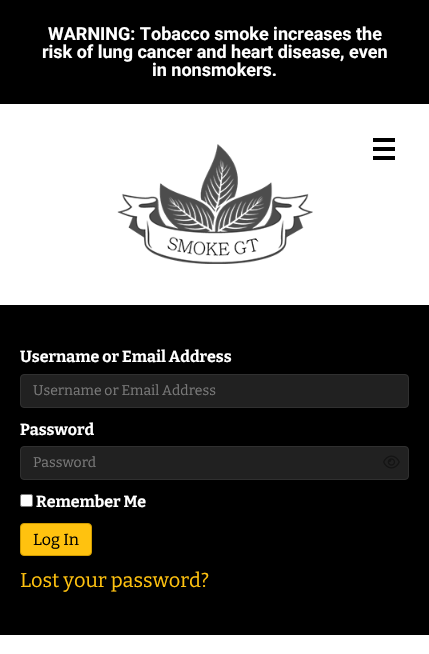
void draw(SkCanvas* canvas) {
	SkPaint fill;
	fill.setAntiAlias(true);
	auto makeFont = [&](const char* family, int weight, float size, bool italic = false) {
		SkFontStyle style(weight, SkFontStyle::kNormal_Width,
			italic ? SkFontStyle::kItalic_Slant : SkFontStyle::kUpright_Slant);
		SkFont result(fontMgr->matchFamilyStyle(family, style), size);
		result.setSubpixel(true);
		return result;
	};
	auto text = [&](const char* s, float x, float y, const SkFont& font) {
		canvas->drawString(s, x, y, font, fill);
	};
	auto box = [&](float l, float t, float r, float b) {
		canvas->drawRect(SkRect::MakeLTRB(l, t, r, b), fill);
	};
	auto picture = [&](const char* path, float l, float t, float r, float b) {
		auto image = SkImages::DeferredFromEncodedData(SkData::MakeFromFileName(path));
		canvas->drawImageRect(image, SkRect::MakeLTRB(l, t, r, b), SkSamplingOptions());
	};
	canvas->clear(0xFF000000);
	fill.setColor(0xFFFFFFFF);
	box(0, 104, 429, 305);
	picture("image0.png", 117, 144, 313, 264);
	fill.setColor(0xFF000000);
	box(373, 138, 395, 142);
	box(373, 147, 395, 151);
	box(373, 156, 395, 160);
	fill.setColor(0xFF212121);
	canvas->drawRoundRect(SkRect::MakeLTRB(20.5f, 374.5f, 408.5f, 407.5f), 3.5f, 3.5f, fill);
	fill.setStyle(SkPaint::kStroke_Style);
	fill.setStrokeWidth(1);
	fill.setColor(0xFF303030);
	canvas->drawRoundRect(SkRect::MakeLTRB(20.5f, 374.5f, 408.5f, 407.5f), 3.5f, 3.5f, fill);
	fill.setStyle(SkPaint::kFill_Style);
	fill.setColor(0xFF212121);
	canvas->drawRoundRect(SkRect::MakeLTRB(20.5f, 446.5f, 408.5f, 479.5f), 3.5f, 3.5f, fill);
	fill.setStyle(SkPaint::kStroke_Style);
	fill.setColor(0xFF303030);
	canvas->drawRoundRect(SkRect::MakeLTRB(20.5f, 446.5f, 408.5f, 479.5f), 3.5f, 3.5f, fill);
	picture("image1.png", 383, 455, 400, 469);
	fill.setStyle(SkPaint::kFill_Style);
	fill.setColor(0xFFFFFFFF);
	canvas->drawRoundRect(SkRect::MakeLTRB(20.5f, 494.5f, 32.5f, 506.5f), 1.5f, 1.5f, fill);
	fill.setStyle(SkPaint::kStroke_Style);
	fill.setColor(0xFF767676);
	canvas->drawRoundRect(SkRect::MakeLTRB(20.5f, 494.5f, 32.5f, 506.5f), 1.5f, 1.5f, fill);
	fill.setStyle(SkPaint::kFill_Style);
	fill.setColor(0xFFFFC20F);
	canvas->drawRoundRect(SkRect::MakeLTRB(20.5f, 523.5f, 91.5f, 555.5f), 3.5f, 3.5f, fill);
	fill.setStyle(SkPaint::kStroke_Style);
	fill.setColor(0xFFD19C00);
	canvas->drawRoundRect(SkRect::MakeLTRB(20.5f, 523.5f, 91.5f, 555.5f), 3.5f, 3.5f, fill);
	fill.setStyle(SkPaint::kFill_Style);
	fill.setColor(0xFFFFFFFF);
	box(0, 635, 429, 654);
	auto font1 = makeFont("Roboto", 700, 18);
	text("WARNING: Tobacco smoke increases the", 48, 40, font1);
	text("risk of lung cancer and heart disease, even", 42, 58, font1);
	text("in nonsmokers.", 152, 76, font1);
	auto font2 = makeFont("Bitter", 700, 16);
	text("Username or Email Address", 20, 362, font2);
	auto font3 = makeFont("Bitter", 400, 14);
	fill.setColor(0xFF7A7A7A);
	text("Username or Email Address", 33, 395, font3);
	fill.setColor(0xFFFFFFFF);
	text("Password", 20, 435, font2);
	fill.setColor(0xFF7A7A7A);
	text("Password", 33, 467, font3);
	fill.setColor(0xFFFFFFFF);
	text("Remember Me", 36, 507, font2);
	auto font4 = makeFont("Bitter", 400, 16);
	fill.setColor(0xFF000000);
	text("Log In", 33, 545, font4);
	auto font5 = makeFont("Bitter", 400, 20);
	fill.setColor(0xFFFFC20F);
	text("Lost your password?", 20, 587, font5);
}
